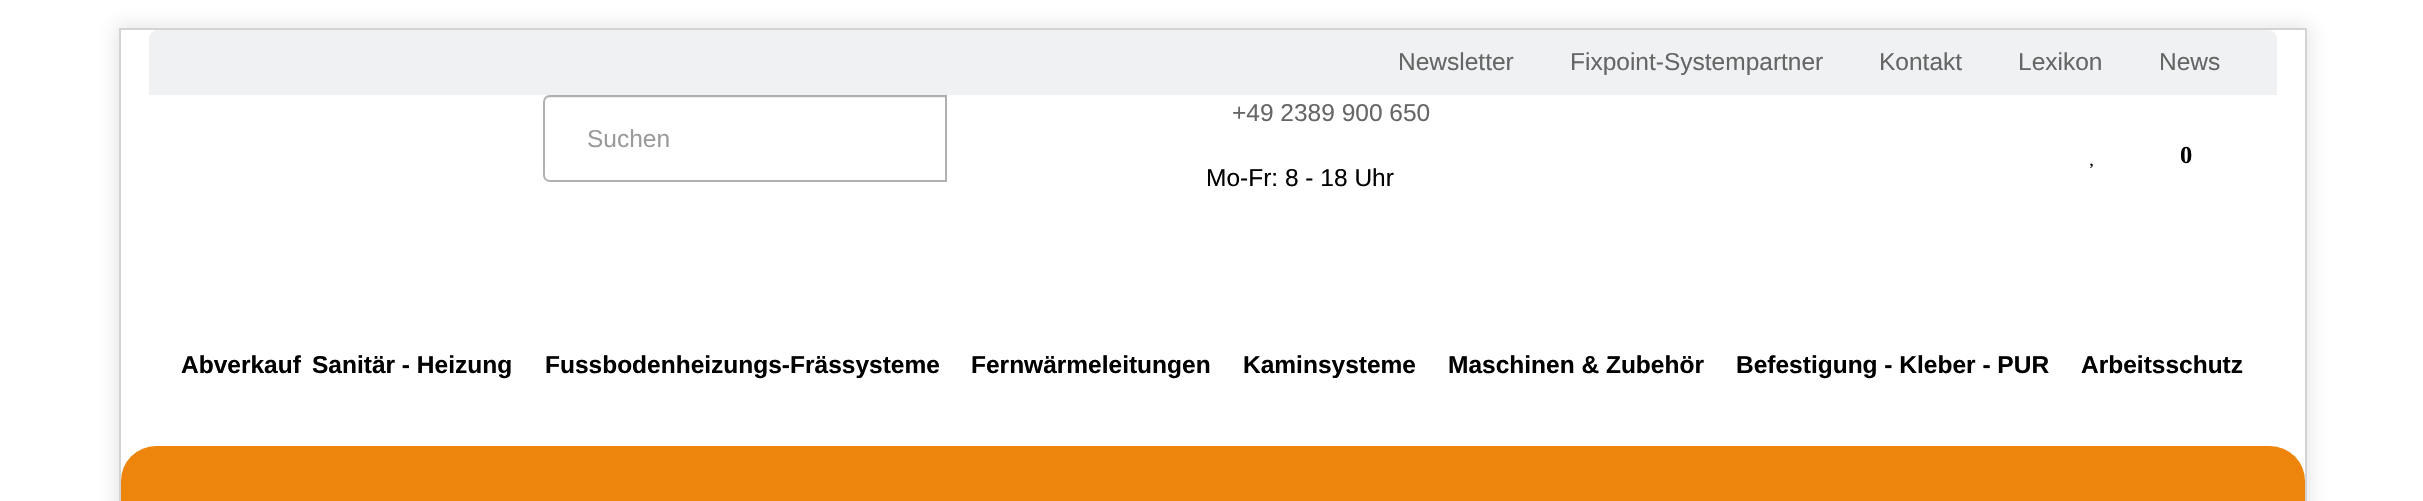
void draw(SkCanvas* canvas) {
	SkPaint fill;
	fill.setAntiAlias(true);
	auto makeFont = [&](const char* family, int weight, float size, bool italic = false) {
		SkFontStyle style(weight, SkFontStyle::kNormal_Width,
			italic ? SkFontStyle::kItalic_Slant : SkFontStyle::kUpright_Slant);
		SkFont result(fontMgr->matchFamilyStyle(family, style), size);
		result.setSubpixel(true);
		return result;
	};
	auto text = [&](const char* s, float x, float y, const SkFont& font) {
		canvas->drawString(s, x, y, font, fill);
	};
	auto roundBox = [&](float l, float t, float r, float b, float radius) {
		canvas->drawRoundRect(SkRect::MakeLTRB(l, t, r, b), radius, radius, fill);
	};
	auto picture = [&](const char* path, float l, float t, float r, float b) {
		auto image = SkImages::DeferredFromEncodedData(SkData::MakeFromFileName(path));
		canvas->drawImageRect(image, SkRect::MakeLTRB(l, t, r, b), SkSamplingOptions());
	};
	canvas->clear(0xFFFFFFFF);
	canvas->save();
	canvas->clipPath(SkPathBuilder(SkPathFillType::kEvenOdd).moveTo(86, 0).lineTo(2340, 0).lineTo(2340, 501).lineTo(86, 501).close().moveTo(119, 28).lineTo(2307, 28).lineTo(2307, 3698).lineTo(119, 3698).close().detach(), true);
	fill.setColor(0x21333333);
	fill.setMaskFilter(SkMaskFilter::MakeBlur(kNormal_SkBlurStyle, 9.5f));
	canvas->drawRect(SkRect::MakeLTRB(116, 25, 2310, 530), fill);
	fill.setMaskFilter(nullptr);
	canvas->restore();
	fill.setStyle(SkPaint::kStroke_Style);
	fill.setStrokeWidth(2);
	fill.setColor(0xFFD3D3D3);
	canvas->drawRect(SkRect::MakeLTRB(120, 29, 2306, 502), fill);
	fill.setStyle(SkPaint::kFill_Style);
	fill.setColor(0xFFEFF1F2);
	canvas->drawPath(SkPathBuilder().moveTo(158, 30).lineTo(2268, 30).cubicTo(2273, 30, 2277, 34, 2277, 39).lineTo(2277, 95).lineTo(149, 95).lineTo(149, 39).cubicTo(149, 34, 153, 30, 158, 30).close().detach(), fill);
	fill.setColor(0xFFECECEC);
	canvas->drawPath(SkPathBuilder().moveTo(550, 98).lineTo(945, 98).lineTo(945, 96).lineTo(549, 96).cubicTo(546, 96, 544, 98, 544, 101).lineTo(544, 103).cubicTo(544, 100, 547, 98, 550, 98).close().detach(), fill);
	fill.setStyle(SkPaint::kStroke_Style);
	fill.setColor(0xFFB0B0B0);
	canvas->drawPath(SkPathBuilder().moveTo(550, 96).lineTo(946, 96).lineTo(946, 181).lineTo(550, 181).cubicTo(546.5f, 181, 544, 178.5f, 544, 175).lineTo(544, 102).cubicTo(544, 98.5f, 546.5f, 96, 550, 96).close().detach(), fill);
	picture("image0.png", 2090, 163, 2093, 168);
	fill.setStyle(SkPaint::kFill_Style);
	fill.setColor(0xFFED840C);
	roundBox(121, 446, 2305, 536, 35);
	auto font1 = makeFont("Liberation Sans", 400, 24.5f);
	fill.setColor(0xFF666666);
	text("Newsletter", 1398, 70, font1);
	text("Fixpoint-Systempartner", 1570, 70, font1);
	text("Kontakt", 1879, 70, font1);
	text("Lexikon", 2018, 70, font1);
	text("News", 2159, 70, font1);
	fill.setColor(0xFF9B9B9B);
	text("Suchen", 587, 147, font1);
	fill.setColor(0xFF666666);
	text("+49 2389 900 650", 1232, 121, font1);
	fill.setColor(0xFF010101);
	text("Mo-Fr: 8 - 18 Uhr", 1206, 186, font1);
	auto font2 = makeFont("Liberation Serif", 700, 24.5f);
	text("0", 2180, 163, font2);
	auto font3 = makeFont("Liberation Sans", 700, 24.5f);
	text("Abverkauf", 181, 373, font3);
	text("Sanitär - Heizung", 312, 373, font3);
	text("Fussbodenheizungs-Frässysteme", 545, 373, font3);
	text("Fernwärmeleitungen", 971, 373, font3);
	text("Kaminsysteme", 1243, 373, font3);
	text("Maschinen & Zubehör", 1448, 373, font3);
	text("Befestigung - Kleber - PUR", 1736, 373, font3);
	text("Arbeitsschutz", 2081, 373, font3);
}
